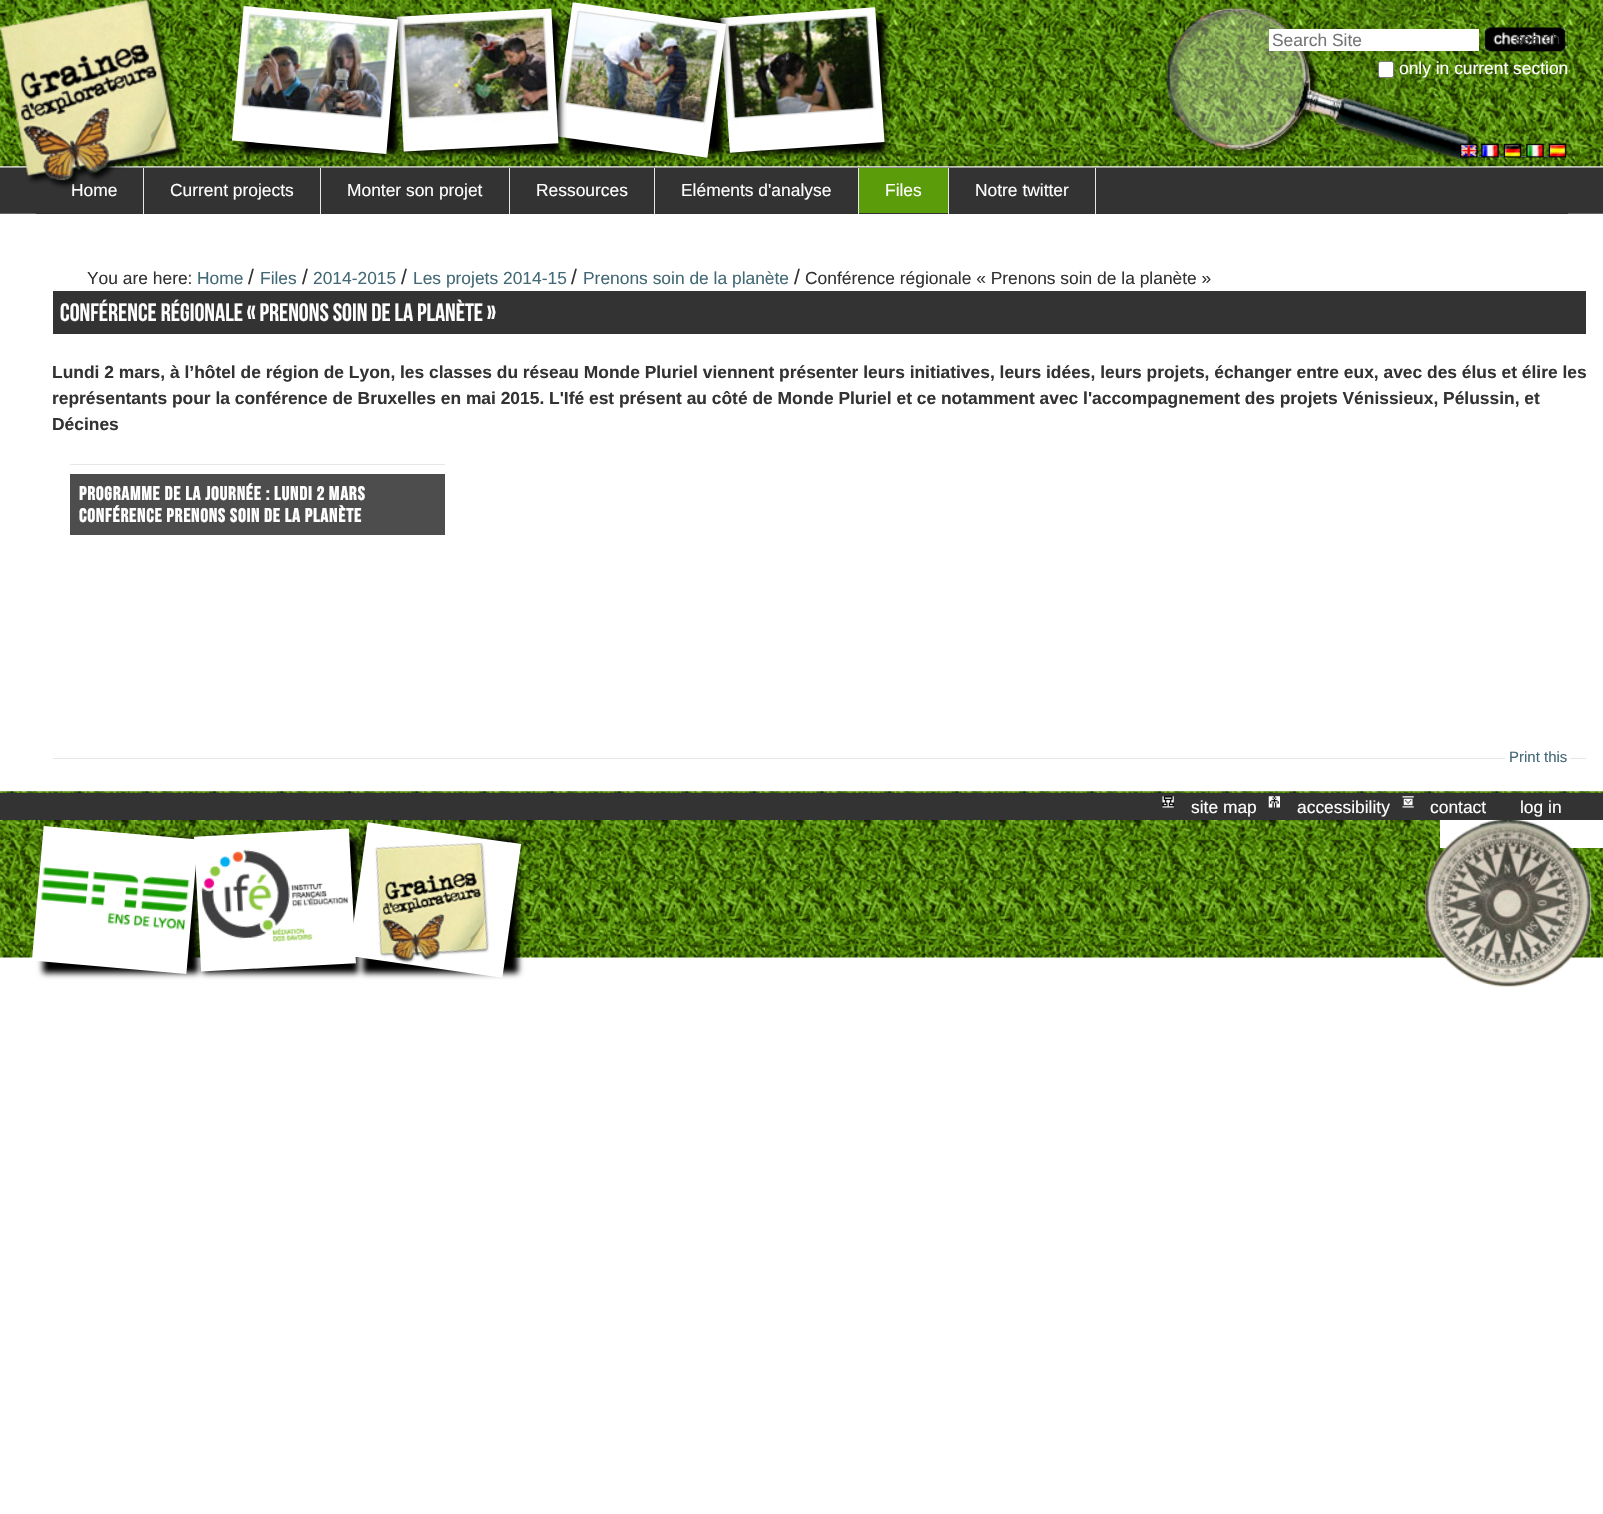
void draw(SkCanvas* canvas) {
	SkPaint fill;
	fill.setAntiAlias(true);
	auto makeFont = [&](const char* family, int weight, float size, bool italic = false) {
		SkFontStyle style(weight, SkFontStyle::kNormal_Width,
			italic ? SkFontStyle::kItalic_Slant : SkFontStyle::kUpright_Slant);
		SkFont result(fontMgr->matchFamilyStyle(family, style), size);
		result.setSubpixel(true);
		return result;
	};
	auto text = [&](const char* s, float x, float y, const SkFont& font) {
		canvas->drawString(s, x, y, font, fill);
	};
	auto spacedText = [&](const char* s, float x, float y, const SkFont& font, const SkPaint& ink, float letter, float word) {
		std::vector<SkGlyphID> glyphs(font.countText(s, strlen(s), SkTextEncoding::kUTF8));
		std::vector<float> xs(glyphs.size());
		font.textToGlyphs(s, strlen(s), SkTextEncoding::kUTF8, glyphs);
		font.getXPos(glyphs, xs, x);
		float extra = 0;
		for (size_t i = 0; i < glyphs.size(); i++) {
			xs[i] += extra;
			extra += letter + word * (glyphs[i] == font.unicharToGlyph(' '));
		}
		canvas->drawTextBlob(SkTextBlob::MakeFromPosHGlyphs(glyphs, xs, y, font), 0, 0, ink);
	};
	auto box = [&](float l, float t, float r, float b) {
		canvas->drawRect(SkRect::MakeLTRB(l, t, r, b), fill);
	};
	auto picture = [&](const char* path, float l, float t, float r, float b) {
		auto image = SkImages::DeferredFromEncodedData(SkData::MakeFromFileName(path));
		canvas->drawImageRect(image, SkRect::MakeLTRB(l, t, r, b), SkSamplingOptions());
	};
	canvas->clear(0xFFFFFFFF);
	picture("image0.png", 0, 0, 1603, 214);
	picture("image6.png", 285, 0, 1479, 167);
	fill.setColor(0xFF000000);
	fill.setMaskFilter(SkMaskFilter::MakeBlur(kNormal_SkBlurStyle, 3));
	canvas->drawRect(SkRect::MakeLTRB(730, 18, 885, 153), fill);
	fill.setMaskFilter(nullptr);
	picture("image5.png", 720, 7, 885, 153);
	fill.setMaskFilter(SkMaskFilter::MakeBlur(kNormal_SkBlurStyle, 3));
	canvas->drawRect(SkRect::MakeLTRB(568, 18, 723, 153), fill);
	fill.setMaskFilter(nullptr);
	picture("image4.png", 556, 2, 726, 158);
	fill.setMaskFilter(SkMaskFilter::MakeBlur(kNormal_SkBlurStyle, 3));
	canvas->drawRect(SkRect::MakeLTRB(405, 18, 560, 153), fill);
	fill.setMaskFilter(nullptr);
	picture("image3.png", 396, 8, 559, 152);
	fill.setMaskFilter(SkMaskFilter::MakeBlur(kNormal_SkBlurStyle, 3));
	canvas->drawRect(SkRect::MakeLTRB(243, 18, 398, 153), fill);
	fill.setMaskFilter(nullptr);
	picture("image2.png", 231, 6, 398, 154);
	fill.setColor(0xFFFFFFFF);
	box(1269, 29, 1479, 51);
	picture("image7.png", 1483, 27, 1568, 52);
	canvas->drawRoundRect(SkRect::MakeLTRB(1378.5f, 61.5f, 1393.5f, 77.5f), 2, 2, fill);
	fill.setStyle(SkPaint::kStroke_Style);
	fill.setStrokeWidth(1);
	fill.setColor(0xFF767676);
	canvas->drawRoundRect(SkRect::MakeLTRB(1378.5f, 61.5f, 1393.5f, 77.5f), 2, 2, fill);
	picture("image8.png", 1460, 143, 1478, 158);
	fill.setStyle(SkPaint::kFill_Style);
	fill.setColor(0xFF436976);
	box(1478, 156, 1482, 157);
	picture("image9.png", 1481, 143, 1499, 158);
	box(1499, 156, 1504, 157);
	picture("image10.png", 1503, 143, 1522, 158);
	box(1521, 156, 1526, 157);
	picture("image11.png", 1526, 143, 1544, 158);
	box(1544, 156, 1549, 157);
	picture("image12.png", 1548, 143, 1567, 158);
	fill.setColor(0xFF333333);
	box(36, 168, 1568, 214);
	fill.setColor(0xFFE7E7E7);
	box(143, 168, 144, 214);
	box(320, 168, 321, 214);
	box(509, 168, 510, 214);
	box(654, 168, 655, 214);
	box(858, 168, 859, 214);
	box(948, 168, 949, 214);
	fill.setColor(0xFF5B9C0A);
	box(859, 168, 948, 213);
	fill.setColor(0xFFE7E7E7);
	box(1095, 168, 1096, 214);
	fill.setColor(0xFF333333);
	box(53, 291, 1586, 334);
	fill.setColor(0xFFE7E7E7);
	box(70, 464, 445, 465);
	fill.setColor(0xFF4D4D4D);
	box(70, 474, 445, 535);
	fill.setColor(0xFFE7E7E7);
	box(53, 758, 1586, 759);
	fill.setColor(0xFFFFFFFF);
	box(1505, 758, 1570, 759);
	picture("image13.png", 0, 791, 1603, 958);
	fill.setColor(0xFF436976);
	box(193, 900, 198, 901);
	fill.setColor(0xFF000000);
	fill.setMaskFilter(SkMaskFilter::MakeBlur(kNormal_SkBlurStyle, 3));
	canvas->drawRect(SkRect::MakeLTRB(43, 838, 198, 973), fill);
	fill.setMaskFilter(nullptr);
	picture("image14.png", 32, 826, 196, 974);
	fill.setMaskFilter(SkMaskFilter::MakeBlur(kNormal_SkBlurStyle, 3));
	canvas->drawRect(SkRect::MakeLTRB(203, 838, 358, 973), fill);
	fill.setMaskFilter(nullptr);
	picture("image17.png", 194, 828, 356, 972);
	fill.setMaskFilter(SkMaskFilter::MakeBlur(kNormal_SkBlurStyle, 3));
	canvas->drawRect(SkRect::MakeLTRB(363, 838, 518, 973), fill);
	fill.setMaskFilter(nullptr);
	picture("image15.png", 353, 822, 522, 978);
	fill.setColor(0xFFFFFFFF);
	box(1440, 820, 1603, 848);
	picture("image16.png", 1425, 820, 1592, 987);
	fill.setColor(0xFF333333);
	box(0, 793, 1603, 820);
	picture("image18.png", 1162, 796, 1174, 808);
	picture("image19.png", 1268, 796, 1280, 808);
	picture("image20.png", 1402, 796, 1414, 808);
	auto font1 = makeFont("Liberation Sans", 400, 17.4f);
	fill.setColor(0xFF757575);
	text("Search Site", 1272, 46, font1);
	auto font2 = makeFont("Liberation Sans", 400, 15);
	fill.setColor(0xFF333333);
	text("search", 1515, 44, font2);
	fill.setColor(0xFFFFFFFF);
	text("only in current section", 1399, 74, font1);
	text("Home", 71, 196, font1);
	text("Current projects", 170, 196, font1);
	picture("image1.png", 0, 0, 183, 189);
	text("Monter son projet", 347, 196, font1);
	text("Ressources", 536, 196, font1);
	text("Eléments d'analyse", 681, 196, font1);
	text("Files", 885, 196, font1);
	text("Notre twitter", 975, 196, font1);
	fill.setColor(0xFF333333);
	text("You are here:", 87, 284, font1);
	fill.setColor(0xFF436976);
	text("Home", 197, 284, font1);
	auto font3 = makeFont("Liberation Sans", 400, 21);
	fill.setColor(0xFF333333);
	text("/", 248, 284, font3);
	fill.setColor(0xFF436976);
	text("Files", 260, 284, font1);
	fill.setColor(0xFF333333);
	text("/", 302, 284, font3);
	fill.setColor(0xFF436976);
	text("2014-2015", 313, 284, font1);
	fill.setColor(0xFF333333);
	text("/", 401, 284, font3);
	fill.setColor(0xFF436976);
	text("Les projets 2014-15", 413, 284, font1);
	fill.setColor(0xFF333333);
	text("/", 571, 284, font3);
	fill.setColor(0xFF436976);
	text("Prenons soin de la planète", 583, 284, font1);
	fill.setColor(0xFF333333);
	text("/", 794, 284, font3);
	text("Conférence régionale « Prenons soin de la planète »", 805, 284, font1);
	auto font4 = makeFont("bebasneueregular", 400, 25);
	fill.setColor(0xFFFFFFFF);
	text("Conférence régionale « Prenons soin de la planète »", 60, 321, font4);
	auto font5 = makeFont("Liberation Sans", 700, 17.4f);
	fill.setColor(0xFF333333);
	text("Lundi 2 mars, à l’hôtel de région de Lyon,", 52, 378, font5);
	text("les classes du réseau Monde Pluriel viennent présenter leurs initiatives, leurs idées, leurs projets, échanger entre eux, avec des élus et élire les", 400, 378, font5);
	text("représentants pour la conférence de Bruxelles en mai 2015. L'Ifé est présent au côté de Monde Pluriel et ce notamment avec l'accompagnement des projets Vénissieux, Pélussin, et", 52, 404, font5);
	text("Décines", 52, 430, font5);
	auto font6 = makeFont("bebasneueregular", 700, 19.1f);
	fill.setColor(0xFFFFFFFF);
	spacedText("Programme de la journée : lundi 2 mars", 79, 500, font6, fill, 0.95f, 0);
	spacedText("Conférence Prenons soin de la planète", 79, 522, font6, fill, 0.95f, 0);
	fill.setColor(0xFF436976);
	text("Print this", 1509, 762, font2);
	fill.setColor(0xFFFFFFFF);
	text("site map", 1191, 813, font1);
	text("accessibility", 1297, 813, font1);
	text("contact", 1430, 813, font1);
	text("log in", 1520, 813, font1);
}
